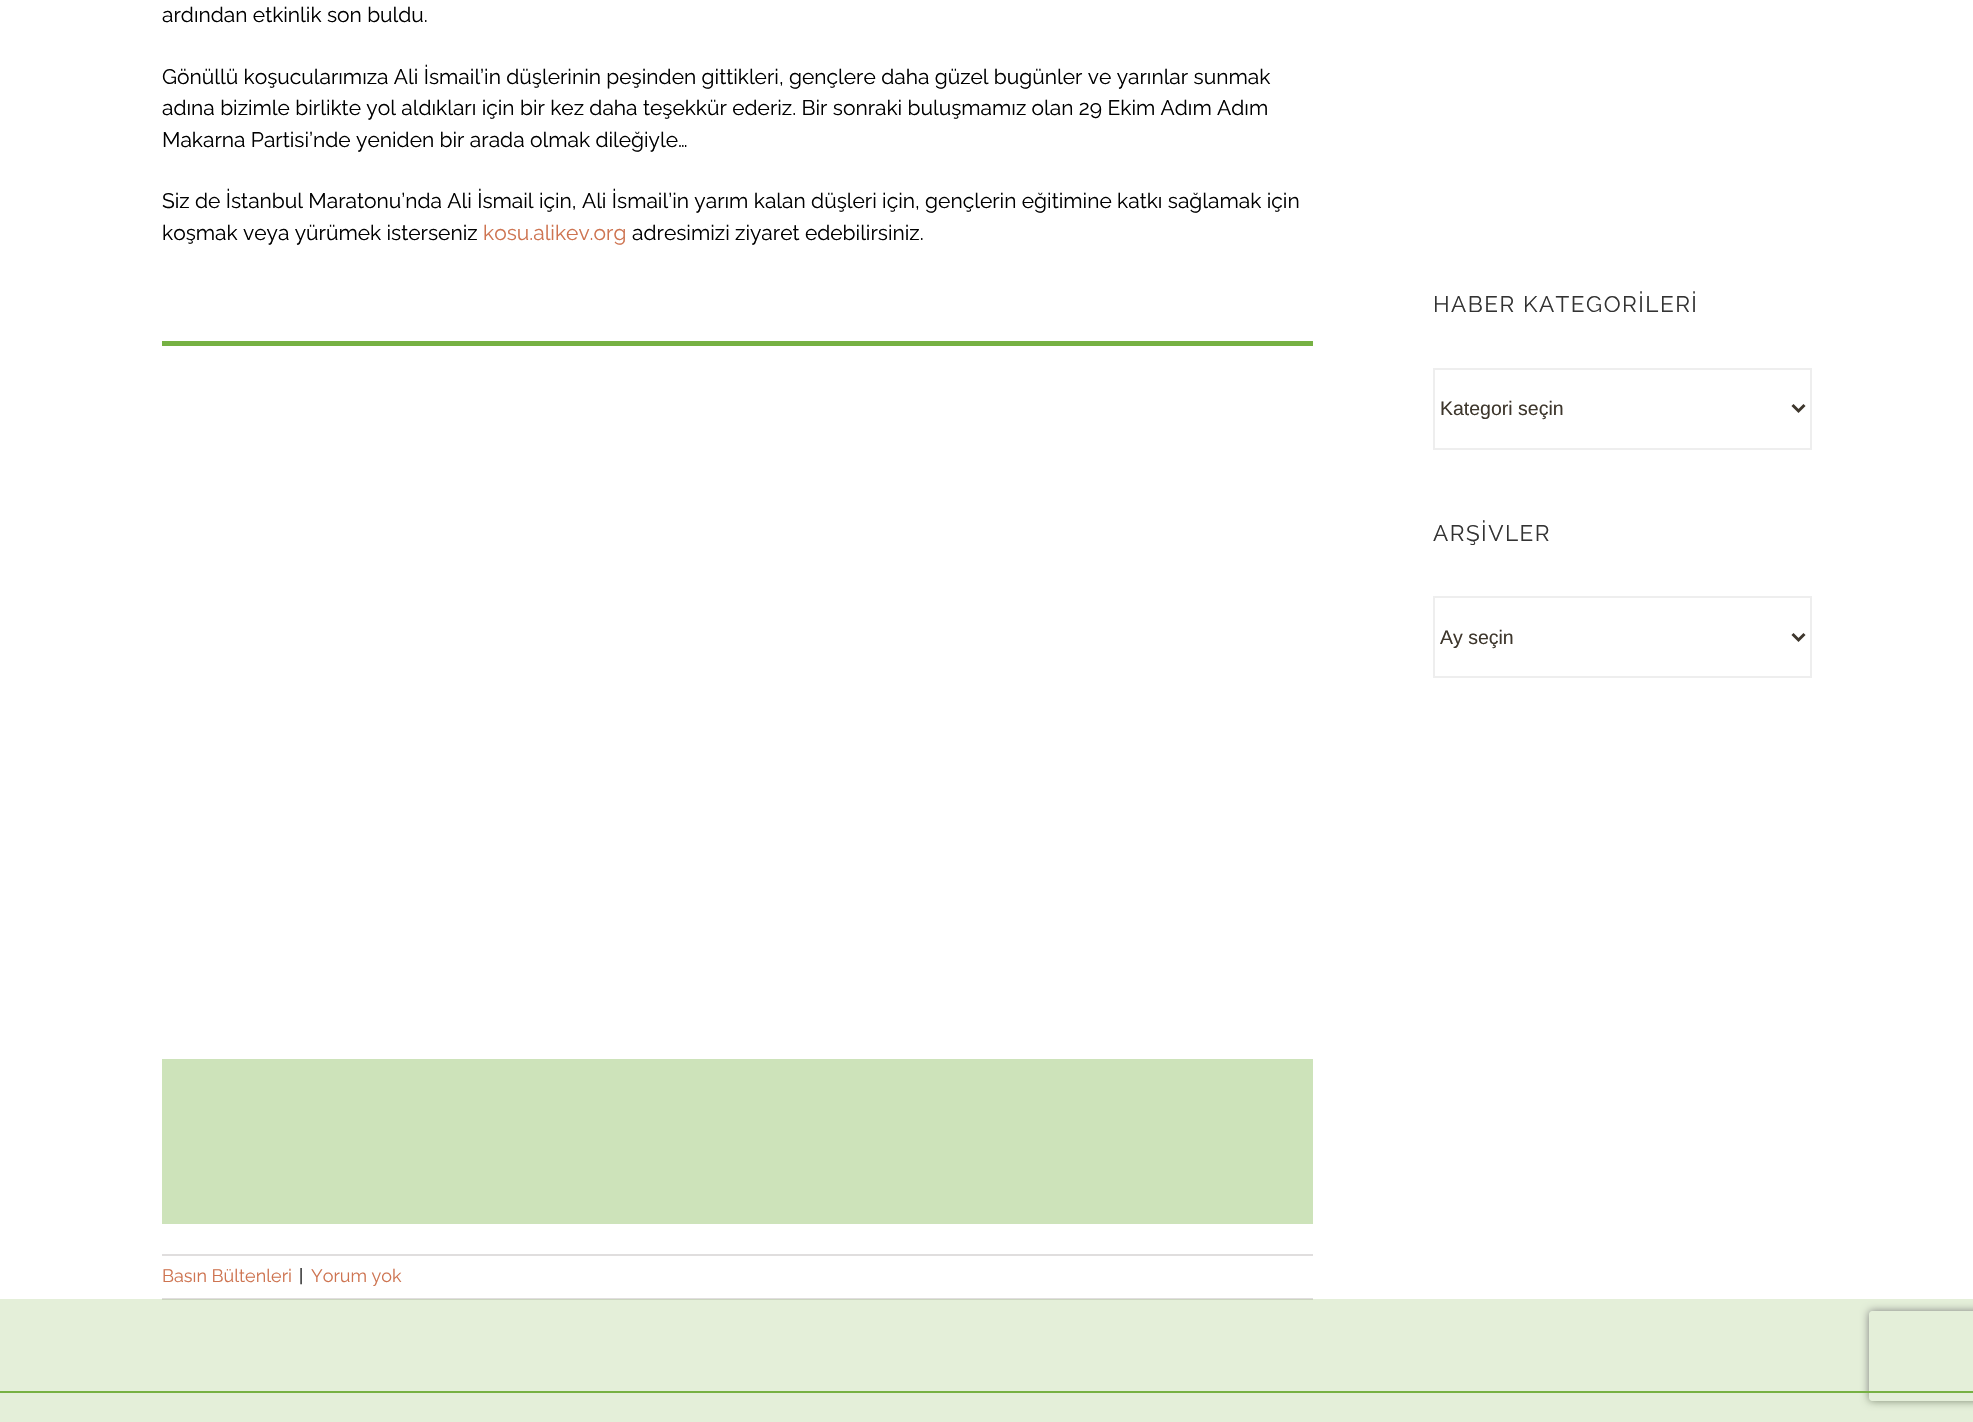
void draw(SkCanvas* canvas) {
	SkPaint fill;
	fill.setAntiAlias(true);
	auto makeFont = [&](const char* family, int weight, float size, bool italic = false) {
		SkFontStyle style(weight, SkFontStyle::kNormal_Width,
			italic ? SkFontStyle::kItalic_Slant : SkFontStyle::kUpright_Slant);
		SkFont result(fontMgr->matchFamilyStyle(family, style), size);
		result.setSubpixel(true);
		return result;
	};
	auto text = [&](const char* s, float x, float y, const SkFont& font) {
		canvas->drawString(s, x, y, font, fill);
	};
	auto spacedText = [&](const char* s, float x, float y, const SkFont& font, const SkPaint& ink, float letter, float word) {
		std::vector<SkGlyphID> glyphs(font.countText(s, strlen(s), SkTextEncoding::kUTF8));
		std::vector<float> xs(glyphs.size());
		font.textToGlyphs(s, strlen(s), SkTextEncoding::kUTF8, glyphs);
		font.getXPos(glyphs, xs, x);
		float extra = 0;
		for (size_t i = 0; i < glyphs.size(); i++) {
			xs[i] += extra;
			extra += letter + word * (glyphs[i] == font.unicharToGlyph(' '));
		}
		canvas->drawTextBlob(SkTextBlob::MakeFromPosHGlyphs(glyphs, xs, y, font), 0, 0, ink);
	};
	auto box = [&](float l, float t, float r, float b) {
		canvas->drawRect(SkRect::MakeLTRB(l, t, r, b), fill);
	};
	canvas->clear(0xFFFFFFFF);
	fill.setColor(0xFFE4EFD9);
	box(0, 1299, 1973, 1391);
	fill.setColor(0xFF76B143);
	box(162, 341, 1313, 346);
	fill.setColor(0xFFCDE3BA);
	box(162, 1059, 1313, 1224);
	fill.setColor(0xFFE0DEDE);
	box(162, 1254, 1313, 1256);
	box(162, 1298, 1313, 1299);
	fill.setColor(0xFFCBD5BF);
	box(162, 1299, 1313, 1300);
	fill.setStyle(SkPaint::kStroke_Style);
	fill.setStrokeWidth(2);
	fill.setColor(0xFFEEEEEE);
	canvas->drawRect(SkRect::MakeLTRB(1434, 369, 1811, 449), fill);
	fill.setStrokeWidth(3);
	fill.setColor(0xFF3E372D);
	canvas->drawPath(SkPathBuilder().moveTo(1792.5f, 405).lineTo(1798.5f, 411).lineTo(1804.5f, 405).detach(), fill);
	fill.setStrokeWidth(2);
	fill.setColor(0xFFEEEEEE);
	canvas->drawRect(SkRect::MakeLTRB(1434, 597, 1811, 677), fill);
	fill.setStrokeWidth(3);
	fill.setColor(0xFF3E372D);
	canvas->drawPath(SkPathBuilder().moveTo(1792.5f, 634).lineTo(1798.5f, 640).lineTo(1804.5f, 634).detach(), fill);
	canvas->save();
	canvas->clipPath(SkPathBuilder(SkPathFillType::kEvenOdd).moveTo(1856, 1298).lineTo(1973, 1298).lineTo(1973, 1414).lineTo(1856, 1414).close().moveTo(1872, 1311).lineTo(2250, 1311).cubicTo(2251.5f, 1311, 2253, 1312.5f, 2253, 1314).lineTo(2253, 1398).cubicTo(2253, 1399.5f, 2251.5f, 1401, 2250, 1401).lineTo(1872, 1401).cubicTo(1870.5f, 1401, 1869, 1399.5f, 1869, 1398).lineTo(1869, 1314).cubicTo(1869, 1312.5f, 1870.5f, 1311, 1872, 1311).close().detach(), true);
	fill.setStyle(SkPaint::kFill_Style);
	fill.setColor(0xFF808080);
	fill.setMaskFilter(SkMaskFilter::MakeBlur(kNormal_SkBlurStyle, 4));
	canvas->drawRoundRect(SkRect::MakeLTRB(1869, 1311, 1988, 1401), 3, 3, fill);
	fill.setMaskFilter(nullptr);
	canvas->restore();
	fill.setColor(0x3377B143);
	box(0, 1393, 1973, 1422);
	fill.setColor(0xFF76B143);
	box(0, 1391, 1973, 1393);
	auto font1 = makeFont("Raleway", 100, 21);
	fill.setColor(0xFF000000);
	text("ardından etkinlik son buldu.", 162, 22, font1);
	text("Gönüllü koşucularımıza Ali İsmail’in düşlerinin peşinden gittikleri, gençlere daha güzel bugünler ve yarınlar sunmak", 162, 84, font1);
	text("adına bizimle birlikte yol aldıkları için bir kez daha teşekkür ederiz. Bir sonraki buluşmamız olan 29 Ekim Adım Adım", 162, 115, font1);
	text("Makarna Partisi’nde yeniden bir arada olmak dileğiyle…", 162, 147, font1);
	text("Siz de İstanbul Maratonu’nda Ali İsmail için, Ali İsmail’in yarım kalan düşleri için, gençlerin eğitimine katkı sağlamak için", 162, 208, font1);
	text("koşmak veya yürümek isterseniz", 162, 240, font1);
	fill.setColor(0xFFCE7451);
	text("kosu.alikev.org", 483, 240, font1);
	fill.setColor(0xFF000000);
	text("adresimizi ziyaret edebilirsiniz.", 632, 240, font1);
	auto font2 = makeFont("Raleway", 100, 18);
	fill.setColor(0xFFCE7451);
	text("Basın Bültenleri", 162, 1282, font2);
	fill.setColor(0xFF000000);
	text("|", 299, 1282, font2);
	fill.setColor(0xFFCE7451);
	text("Yorum yok", 311, 1282, font2);
	auto font3 = makeFont("Raleway", 100, 22.5f);
	fill.setColor(0xFF333333);
	spacedText("HABER KATEGORİLERİ", 1433, 312, font3, fill, 1.5f, 0);
	auto font4 = makeFont("Liberation Sans", 400, 19.5f);
	fill.setColor(0xFF3E372D);
	text("Kategori seçin", 1440, 415, font4);
	fill.setColor(0xFF333333);
	spacedText("ARŞİVLER", 1433, 541, font3, fill, 1.5f, 0);
	fill.setColor(0xFF3E372D);
	text("Ay seçin", 1440, 644, font4);
}
